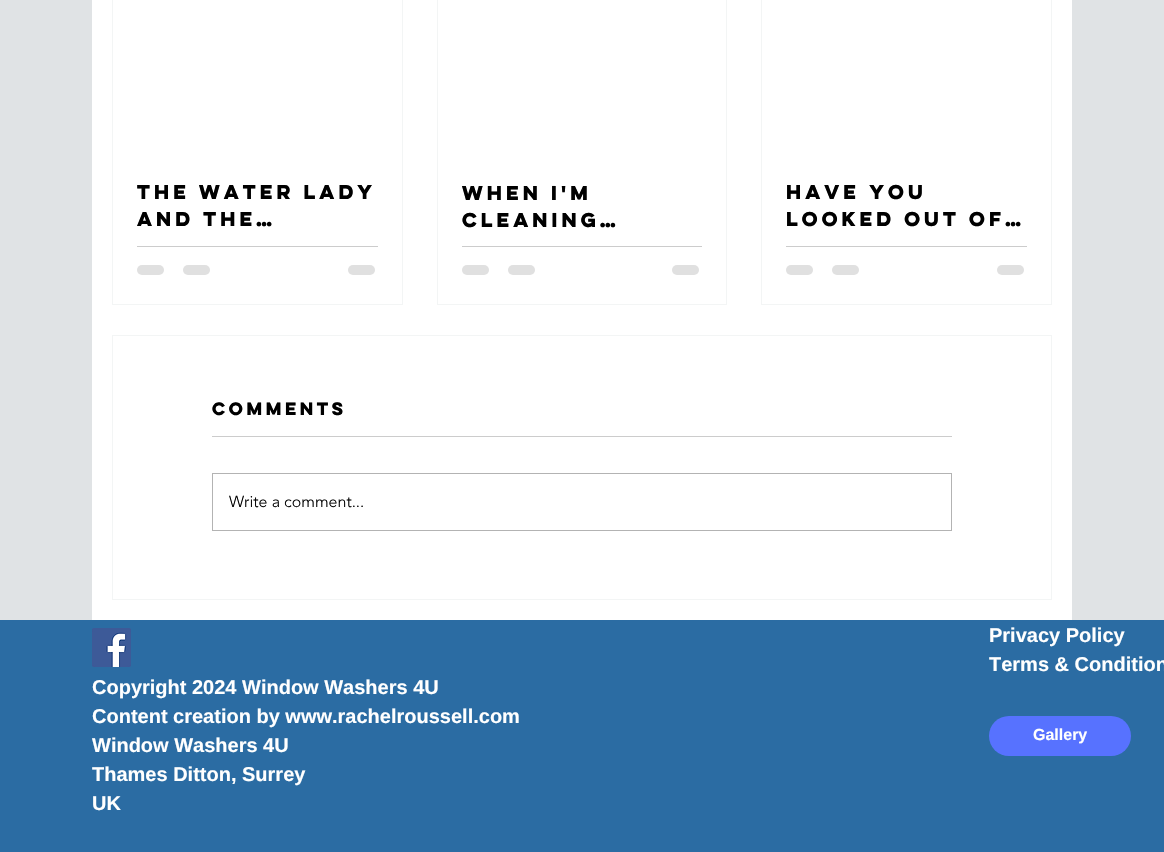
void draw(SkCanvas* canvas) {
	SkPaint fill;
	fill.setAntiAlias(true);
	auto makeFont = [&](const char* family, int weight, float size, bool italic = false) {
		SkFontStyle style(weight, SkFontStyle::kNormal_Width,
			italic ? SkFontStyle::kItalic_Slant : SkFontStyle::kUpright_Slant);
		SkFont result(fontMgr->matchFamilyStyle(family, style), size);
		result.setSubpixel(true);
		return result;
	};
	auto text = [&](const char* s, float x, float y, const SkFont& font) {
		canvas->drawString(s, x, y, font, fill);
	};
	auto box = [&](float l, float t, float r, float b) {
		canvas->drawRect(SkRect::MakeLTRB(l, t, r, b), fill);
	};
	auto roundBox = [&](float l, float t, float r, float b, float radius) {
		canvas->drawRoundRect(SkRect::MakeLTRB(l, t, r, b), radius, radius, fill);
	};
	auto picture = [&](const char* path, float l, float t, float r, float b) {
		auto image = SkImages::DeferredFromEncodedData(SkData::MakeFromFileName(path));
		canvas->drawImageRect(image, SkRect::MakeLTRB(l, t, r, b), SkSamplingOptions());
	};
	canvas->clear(0xFFE0E3E5);
	fill.setColor(0xFFFFFFFF);
	box(92, 0, 1072, 620);
	fill.setStyle(SkPaint::kStroke_Style);
	fill.setStrokeWidth(1);
	fill.setColor(0xFFF3F5F5);
	canvas->drawRect(SkRect::MakeLTRB(112.5f, -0.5f, 402.5f, 304.5f), fill);
	fill.setStyle(SkPaint::kFill_Style);
	fill.setColor(0xFFCCCCCC);
	box(137, 246, 378, 247);
	fill.setColor(0xFFE0E0E0);
	roundBox(137, 265, 164, 275, 5);
	roundBox(183, 265, 210, 275, 5);
	roundBox(348, 265, 375, 275, 5);
	fill.setStyle(SkPaint::kStroke_Style);
	fill.setColor(0xFFF3F5F5);
	canvas->drawRect(SkRect::MakeLTRB(437.5f, -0.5f, 726.5f, 304.5f), fill);
	fill.setStyle(SkPaint::kFill_Style);
	fill.setColor(0xFFCCCCCC);
	box(462, 246, 702, 247);
	fill.setColor(0xFFE0E0E0);
	roundBox(462, 265, 489, 275, 5);
	roundBox(508, 265, 535, 275, 5);
	roundBox(672, 265, 699, 275, 5);
	fill.setStyle(SkPaint::kStroke_Style);
	fill.setColor(0xFFF3F5F5);
	canvas->drawRect(SkRect::MakeLTRB(761.5f, -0.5f, 1051.5f, 304.5f), fill);
	fill.setStyle(SkPaint::kFill_Style);
	fill.setColor(0xFFCCCCCC);
	box(786, 246, 1027, 247);
	fill.setColor(0xFFE0E0E0);
	roundBox(786, 265, 813, 275, 5);
	roundBox(832, 265, 859, 275, 5);
	roundBox(997, 265, 1024, 275, 5);
	fill.setStyle(SkPaint::kStroke_Style);
	fill.setColor(0xFFF3F5F5);
	canvas->drawRect(SkRect::MakeLTRB(112.5f, 335.5f, 1051.5f, 599.5f), fill);
	fill.setStyle(SkPaint::kFill_Style);
	fill.setColor(0xFFCCCCCC);
	box(212, 436, 952, 437);
	fill.setStyle(SkPaint::kStroke_Style);
	fill.setColor(0xFFB3B3B3);
	canvas->drawRect(SkRect::MakeLTRB(212.5f, 473.5f, 951.5f, 530.5f), fill);
	fill.setStyle(SkPaint::kFill_Style);
	fill.setColor(0xFF2B6CA3);
	box(0, 620, 1164, 852);
	picture("image0.png", 92, 628, 131, 667);
	fill.setColor(0xFF5772FF);
	roundBox(989, 716, 1131, 756, 20);
	auto font1 = makeFont("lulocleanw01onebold", 700, 18);
	fill.setColor(0xFF000000);
	text("The water lady", 137, 199, font1);
	text("and the…", 137, 226, font1);
	text("When I'm", 462, 200, font1);
	text("cleaning…", 462, 227, font1);
	text("Have you", 786, 199, font1);
	text("looked out of…", 786, 226, font1);
	auto font2 = makeFont("lulocleanw01onebold", 700, 16);
	text("Comments", 212, 415, font2);
	auto font3 = makeFont("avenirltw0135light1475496", 300, 16);
	text("Write a comment...", 229, 507, font3);
	auto font4 = makeFont("Liberation Sans", 700, 20);
	fill.setColor(0xFFFFFFFF);
	text("Privacy Policy", 989, 642, font4);
	text("Terms & Condition", 989, 671, font4);
	text("Copyright 2024 Window Washers 4U", 92, 694, font4);
	text("Content creation by www.rachelroussell.com", 92, 723, font4);
	text("Window Washers 4U", 92, 752, font4);
	text("Thames Ditton, Surrey", 92, 781, font4);
	text("UK", 92, 810, font4);
	auto font5 = makeFont("Liberation Sans", 700, 16);
	text("Gallery", 1033, 740, font5);
}
